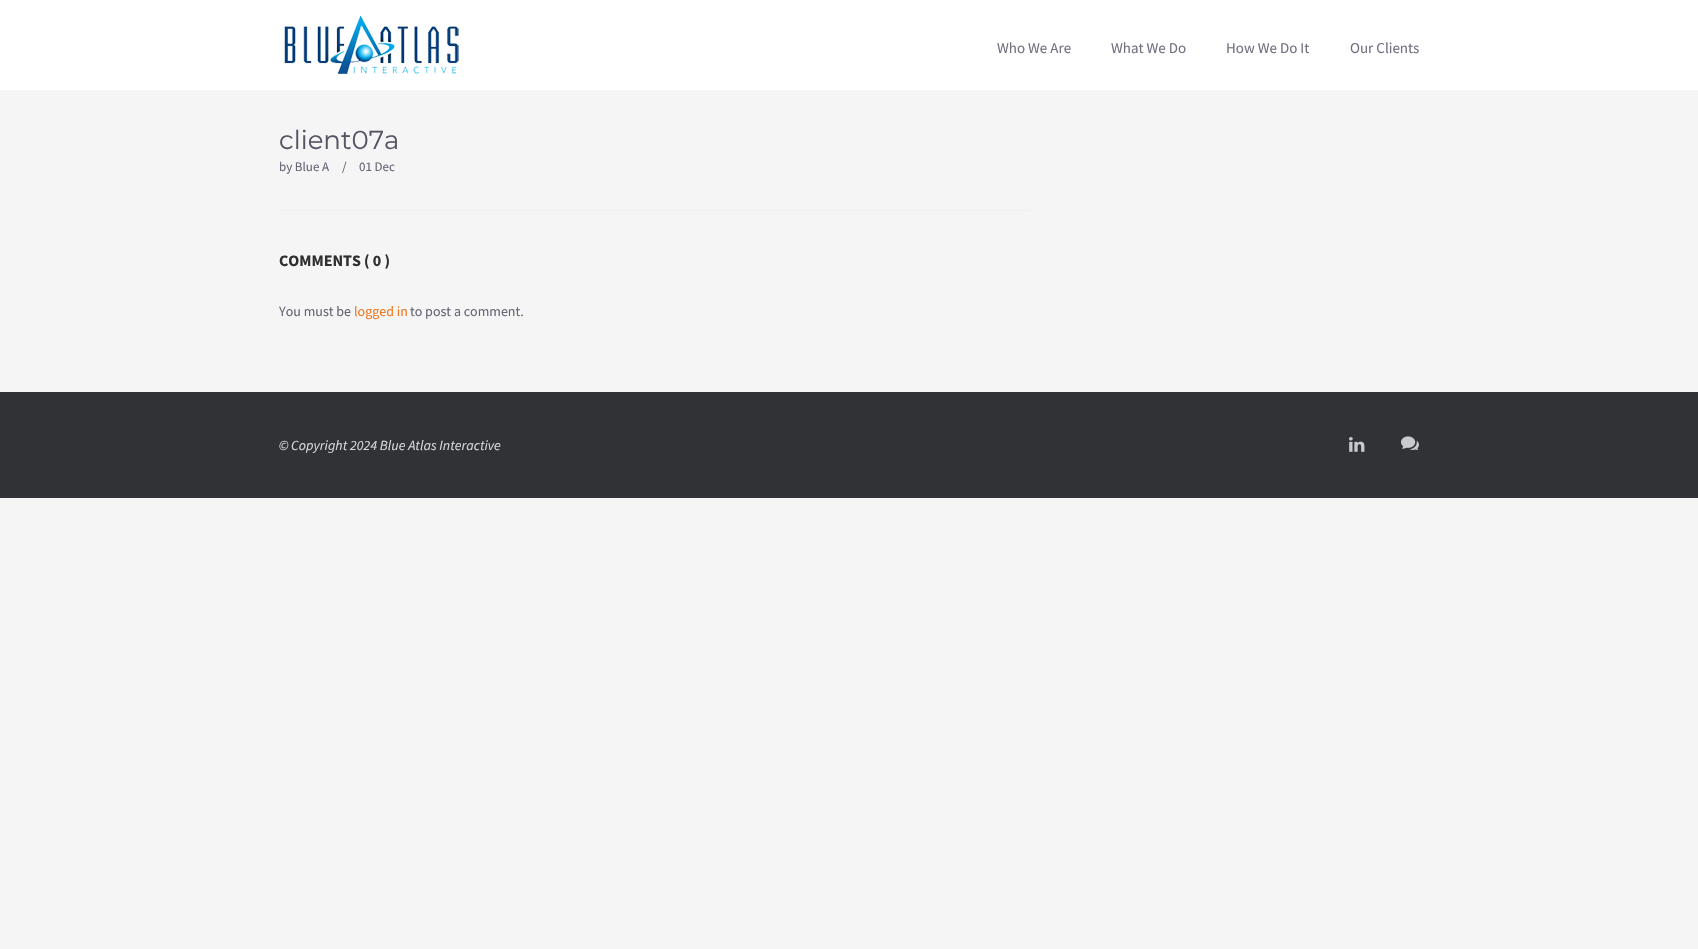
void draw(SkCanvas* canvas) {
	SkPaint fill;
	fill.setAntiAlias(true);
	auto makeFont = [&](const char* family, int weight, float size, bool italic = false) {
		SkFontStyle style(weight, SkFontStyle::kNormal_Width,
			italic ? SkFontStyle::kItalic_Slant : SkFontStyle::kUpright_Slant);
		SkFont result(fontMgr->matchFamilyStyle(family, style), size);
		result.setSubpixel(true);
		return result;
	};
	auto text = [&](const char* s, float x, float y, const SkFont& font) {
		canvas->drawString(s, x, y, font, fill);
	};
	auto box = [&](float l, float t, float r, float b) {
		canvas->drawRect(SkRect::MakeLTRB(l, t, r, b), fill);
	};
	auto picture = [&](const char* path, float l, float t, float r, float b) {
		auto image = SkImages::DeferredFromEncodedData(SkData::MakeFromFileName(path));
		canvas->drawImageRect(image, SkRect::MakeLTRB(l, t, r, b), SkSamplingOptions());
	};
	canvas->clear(0xFFF5F5F5);
	fill.setColor(0xFFFFFFFF);
	box(0, 0, 1698, 90);
	picture("image0.png", 284, 15, 459, 74);
	fill.setColor(0xFFEEEEEE);
	box(279, 210, 1029, 211);
	fill.setColor(0xFF303236);
	box(0, 392, 1698, 498);
	picture("image1.png", 1349, 437, 1365, 452);
	picture("image2.png", 1401, 436, 1419, 450);
	auto font1 = makeFont("Source Sans Pro", 400, 15);
	fill.setColor(0xFF707080);
	text("Who We Are", 997, 53, font1);
	text("What We Do", 1111, 53, font1);
	text("How We Do It", 1226, 53, font1);
	text("Our Clients", 1350, 53, font1);
	auto font2 = makeFont("Montserrat", 400, 26);
	fill.setColor(0xFF555566);
	text("client07a", 279, 149, font2);
	auto font3 = makeFont("Source Sans Pro", 400, 13);
	fill.setColor(0xFF666677);
	text("by Blue A", 279, 171, font3);
	text("/", 342, 171, font3);
	text("01 Dec", 359, 171, font3);
	auto font4 = makeFont("Source Sans Pro", 700, 16);
	fill.setColor(0xFF303030);
	text("COMMENTS ( 0 )", 279, 266, font4);
	auto font5 = makeFont("Source Sans Pro", 400, 14);
	fill.setColor(0xFF666677);
	text("You must be", 279, 316, font5);
	fill.setColor(0xFFF07822);
	text("logged in", 354, 316, font5);
	fill.setColor(0xFF666677);
	text("to post a comment.", 410, 316, font5);
	auto font6 = makeFont("Source Sans Pro", 400, 14, true);
	fill.setColor(0xFFD4D8DB);
	text("© Copyright 2024 Blue Atlas Interactive", 279, 450, font6);
}
